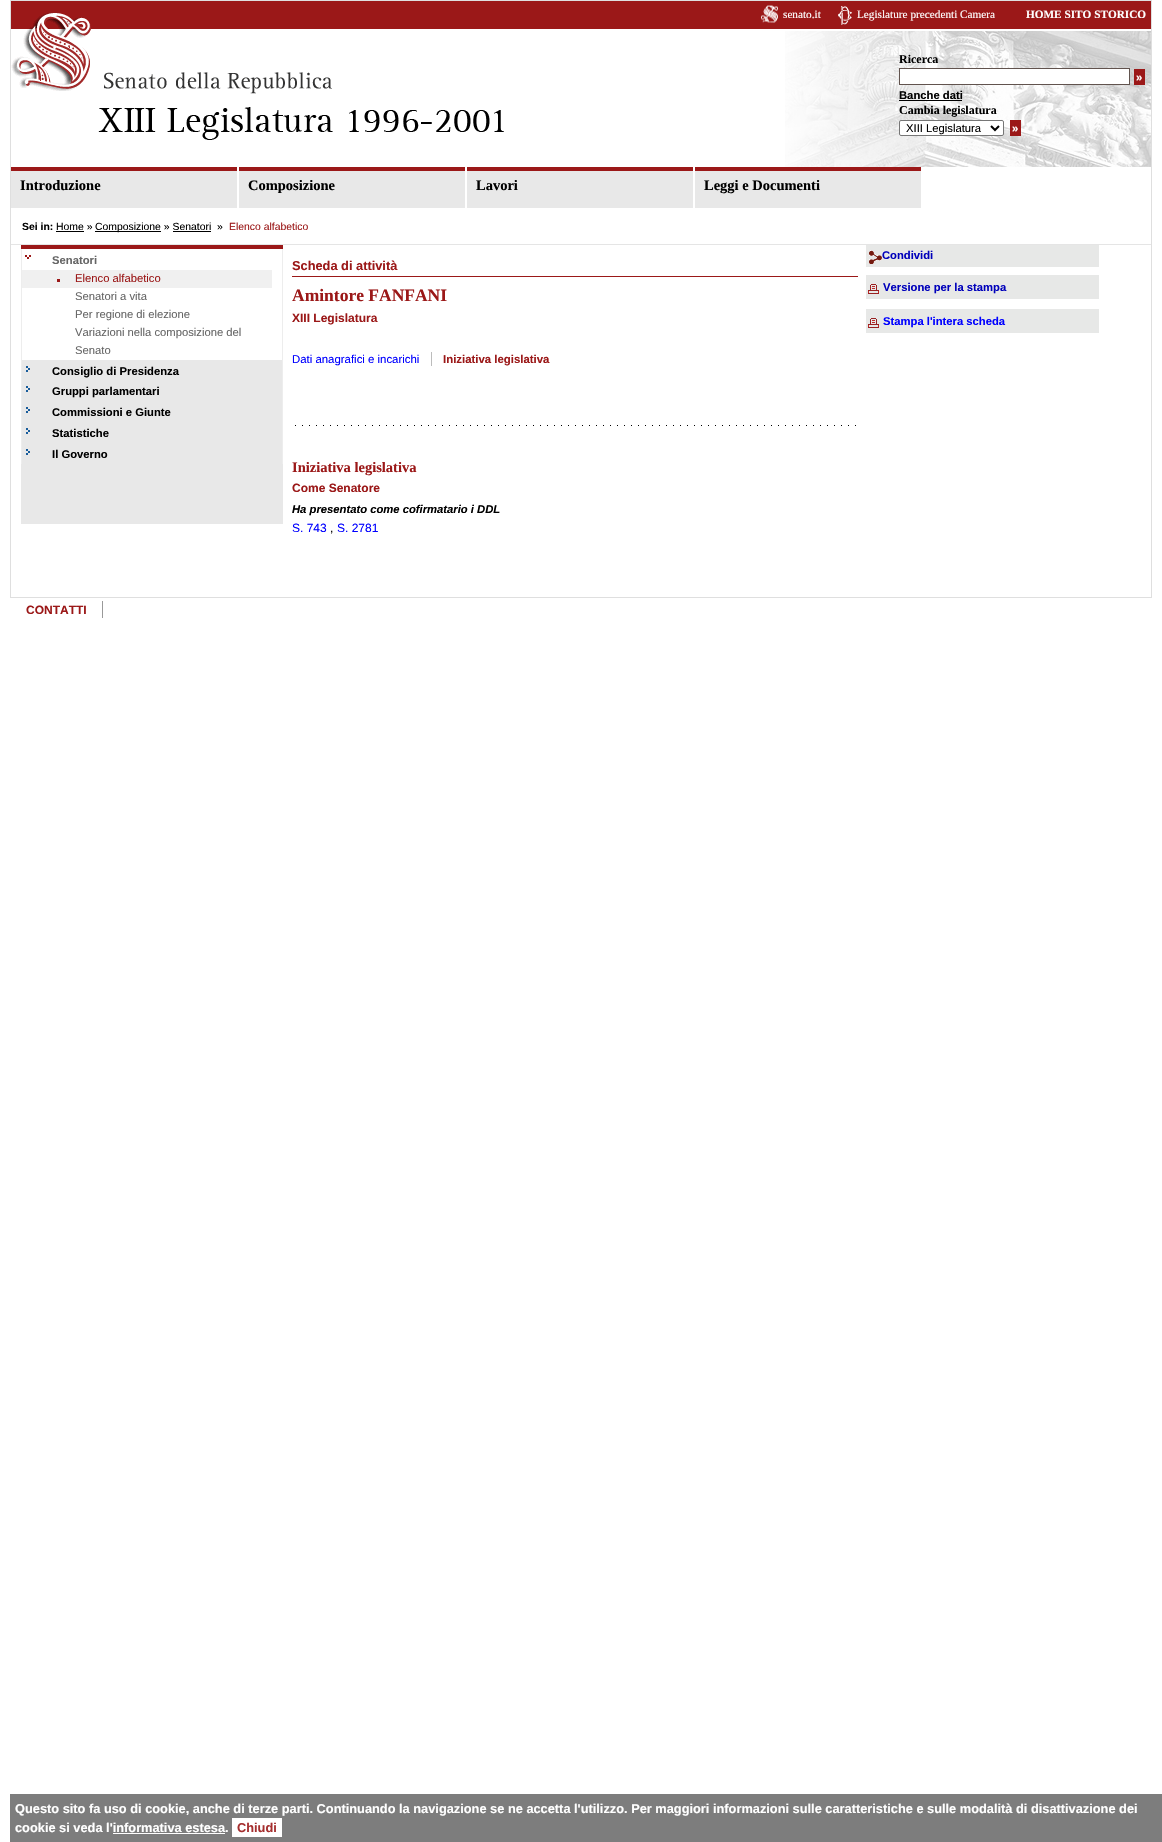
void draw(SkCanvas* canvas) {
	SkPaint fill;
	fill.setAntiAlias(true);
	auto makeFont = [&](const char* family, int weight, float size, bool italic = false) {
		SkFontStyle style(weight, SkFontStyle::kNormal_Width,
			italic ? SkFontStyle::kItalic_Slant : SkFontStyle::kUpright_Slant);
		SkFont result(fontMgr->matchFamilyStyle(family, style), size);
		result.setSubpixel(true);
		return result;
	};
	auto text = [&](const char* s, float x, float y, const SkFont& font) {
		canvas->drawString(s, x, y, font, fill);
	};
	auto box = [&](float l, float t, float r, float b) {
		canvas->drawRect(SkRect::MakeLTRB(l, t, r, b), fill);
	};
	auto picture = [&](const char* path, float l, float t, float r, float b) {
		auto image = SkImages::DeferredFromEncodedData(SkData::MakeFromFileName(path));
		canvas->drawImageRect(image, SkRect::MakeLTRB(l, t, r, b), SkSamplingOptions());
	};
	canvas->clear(0xFFFFFFFF);
	fill.setStyle(SkPaint::kStroke_Style);
	fill.setStrokeWidth(1);
	fill.setColor(0xFFDFDFDF);
	canvas->drawRect(SkRect::MakeLTRB(10.5f, 0.5f, 1151.5f, 597.5f), fill);
	picture("image0.png", 785, 31, 1151, 167);
	picture("image1.png", 11, 1, 379, 94);
	picture("image2.png", 98, 107, 504, 140);
	fill.setStyle(SkPaint::kFill_Style);
	fill.setColor(0xFF9B1818);
	box(379, 1, 1151, 29);
	picture("image3.png", 761, 5, 778, 23);
	picture("image4.png", 838, 6, 852, 25);
	fill.setColor(0xFFFFFFFF);
	canvas->drawRect(SkRect::MakeLTRB(899.5f, 68.5f, 1129.5f, 84.5f), fill);
	fill.setStyle(SkPaint::kStroke_Style);
	fill.setColor(0xFF61534E);
	canvas->drawRect(SkRect::MakeLTRB(899.5f, 68.5f, 1129.5f, 84.5f), fill);
	fill.setStyle(SkPaint::kFill_Style);
	fill.setColor(0xFF9B1818);
	box(1134, 69, 1145, 85);
	fill.setColor(0xFF000000);
	box(899, 100, 962, 101);
	fill.setColor(0xFFFFFFFF);
	canvas->drawRoundRect(SkRect::MakeLTRB(899.5f, 120.5f, 1003.5f, 135.5f), 1.5f, 1.5f, fill);
	fill.setStyle(SkPaint::kStroke_Style);
	fill.setColor(0xFF767676);
	canvas->drawRoundRect(SkRect::MakeLTRB(899.5f, 120.5f, 1003.5f, 135.5f), 1.5f, 1.5f, fill);
	fill.setStrokeWidth(2);
	fill.setColor(0xFF000000);
	canvas->drawPath(SkPathBuilder().moveTo(991, 126).lineTo(995, 130).lineTo(999, 126).detach(), fill);
	fill.setStyle(SkPaint::kFill_Style);
	fill.setColor(0xFF9B1818);
	box(1010, 120, 1021, 136);
	fill.setColor(0xFFE8E8E8);
	box(11, 171, 237, 208);
	fill.setColor(0xFF9B1818);
	box(11, 167, 237, 171);
	fill.setColor(0xFFE8E8E8);
	box(239, 171, 465, 208);
	fill.setColor(0xFF9B1818);
	box(239, 167, 465, 171);
	fill.setColor(0xFFE8E8E8);
	box(467, 171, 693, 208);
	fill.setColor(0xFF9B1818);
	box(467, 167, 693, 171);
	fill.setColor(0xFFE8E8E8);
	box(695, 171, 921, 208);
	fill.setColor(0xFF9B1818);
	box(695, 167, 921, 171);
	fill.setColor(0xFFE5E5E5);
	box(11, 244, 1151, 245);
	fill.setColor(0xFF000000);
	box(56, 231, 84, 232);
	box(95, 231, 161, 232);
	box(173, 231, 211, 232);
	fill.setColor(0xFFE8E8E8);
	box(21, 360, 283, 524);
	fill.setColor(0xFF9B1818);
	box(21, 245, 283, 249);
	fill.setColor(0xFFEDEDED);
	box(282, 249, 283, 464);
	box(21, 249, 22, 464);
	picture("image5.png", 25, 255, 31, 259);
	fill.setColor(0xFFF0F0F0);
	box(22, 270, 272, 288);
	fill.setColor(0xFF9B1818);
	box(57, 279, 60, 282);
	picture("image6.png", 26, 366, 30, 372);
	picture("image6.png", 26, 386, 30, 392);
	picture("image6.png", 26, 407, 30, 413);
	picture("image6.png", 26, 428, 30, 434);
	picture("image6.png", 26, 449, 30, 455);
	box(292, 276, 858, 277);
	fill.setColor(0xFFBCBCBC);
	box(431, 352, 432, 366);
	picture("image7.png", 295, 425, 856, 426);
	fill.setColor(0xFFE7E8E7);
	box(866, 245, 1099, 267);
	picture("image8.png", 869, 250, 882, 264);
	box(866, 275, 1099, 299);
	picture("image9.png", 868, 284, 879, 294);
	box(866, 309, 1099, 333);
	picture("image9.png", 868, 318, 879, 328);
	fill.setColor(0xFF999999);
	box(102, 601, 103, 618);
	fill.setColor(0xFF7D7D7D);
	box(10, 1794, 1162, 1842);
	fill.setColor(0xFFFFFFFF);
	box(232, 1818, 282, 1837);
	box(113, 1833, 225, 1834);
	auto font1 = makeFont("Liberation Serif", 400, 11.25f);
	text("senato.it", 783, 18, font1);
	text("Legislature precedenti Camera", 857, 18, font1);
	auto font2 = makeFont("Liberation Serif", 700, 11.25f);
	text("HOME SITO STORICO", 1026, 18, font2);
	auto font3 = makeFont("Liberation Serif", 700, 12);
	fill.setColor(0xFF000000);
	text("Ricerca", 899, 63, font3);
	auto font4 = makeFont("Liberation Sans", 700, 11.25f);
	fill.setColor(0xFFFFFFFF);
	text("»", 1136, 81, font4);
	fill.setColor(0xFF000000);
	text("Banche dati", 899, 99, font4);
	text("Cambia legislatura", 899, 114, font3);
	auto font5 = makeFont("Liberation Sans", 400, 11.25f);
	text("XIII Legislatura", 906, 132, font5);
	fill.setColor(0xFFFFFFFF);
	text("»", 1012, 132, font4);
	auto font6 = makeFont("Liberation Serif", 700, 14.5f);
	fill.setColor(0xFF000000);
	text("Introduzione", 20, 190, font6);
	text("Composizione", 248, 190, font6);
	text("Lavori", 476, 190, font6);
	text("Leggi e Documenti", 704, 190, font6);
	auto font7 = makeFont("Liberation Sans", 700, 10.4f);
	text("Sei in:", 22, 230, font7);
	auto font8 = makeFont("Liberation Sans", 400, 10.4f);
	text("Home »", 56, 230, font8);
	text("Composizione » Senatori", 95, 230, font8);
	text("»", 217, 230, font8);
	fill.setColor(0xFF9B1818);
	text("Elenco alfabetico", 229, 230, font8);
	fill.setColor(0xFF666666);
	text("Senatori", 52, 264, font4);
	fill.setColor(0xFF9B1818);
	text("Elenco alfabetico", 75, 282, font5);
	fill.setColor(0xFF666666);
	text("Senatori a vita", 75, 300, font5);
	text("Per regione di elezione", 75, 318, font5);
	text("Variazioni nella composizione del", 75, 336, font5);
	text("Senato", 75, 354, font5);
	fill.setColor(0xFF000000);
	text("Consiglio di Presidenza", 52, 375, font4);
	text("Gruppi parlamentari", 52, 395, font4);
	text("Commissioni e Giunte", 52, 416, font4);
	text("Statistiche", 52, 437, font4);
	text("Il Governo", 52, 458, font4);
	auto font9 = makeFont("Liberation Sans", 700, 12.8f);
	fill.setColor(0xFF9B1818);
	text("Scheda di attività", 292, 270, font9);
	auto font10 = makeFont("Liberation Serif", 700, 17.5f);
	text("Amintore FANFANI", 292, 301, font10);
	auto font11 = makeFont("Liberation Sans", 700, 12);
	text("XIII Legislatura", 292, 322, font11);
	auto font12 = makeFont("Liberation Sans", 400, 11.4f);
	fill.setColor(0xFF0000FF);
	text("Dati anagrafici e incarichi", 292, 363, font12);
	auto font13 = makeFont("Liberation Sans", 700, 11.4f);
	fill.setColor(0xFF9B1818);
	text("Iniziativa legislativa", 443, 363, font13);
	text("Iniziativa legislativa", 292, 472, font6);
	text("Come Senatore", 292, 492, font11);
	auto font14 = makeFont("Liberation Sans", 700, 11.25f, true);
	fill.setColor(0xFF000000);
	text("Ha presentato come cofirmatario i DDL", 292, 513, font14);
	auto font15 = makeFont("Liberation Sans", 400, 12);
	fill.setColor(0xFF0000FF);
	text("S. 743", 292, 532, font15);
	fill.setColor(0xFF000000);
	text(",", 330, 532, font15);
	fill.setColor(0xFF0000FF);
	text("S. 2781", 337, 532, font15);
	fill.setColor(0xFF0000BB);
	text("Condividi", 882, 259, font4);
	text("Versione per la stampa", 883, 291, font4);
	fill.setColor(0xFF0000FF);
	text("Stampa l'intera scheda", 883, 325, font4);
	fill.setColor(0xFF9B1818);
	text("CONTATTI", 26, 614, font11);
	fill.setColor(0xFFFFFFFF);
	text("Questo sito fa uso di cookie, anche di terze parti. Continuando la navigazione se ne accetta l'utilizzo. Per maggiori informazioni sulle caratteristiche e sulle modalità di disattivazione dei", 15, 1813, font9);
	text("cookie si veda l'informativa estesa.", 15, 1832, font9);
	fill.setColor(0xFFA52F2F);
	text("Chiudi", 237, 1832, font9);
}
